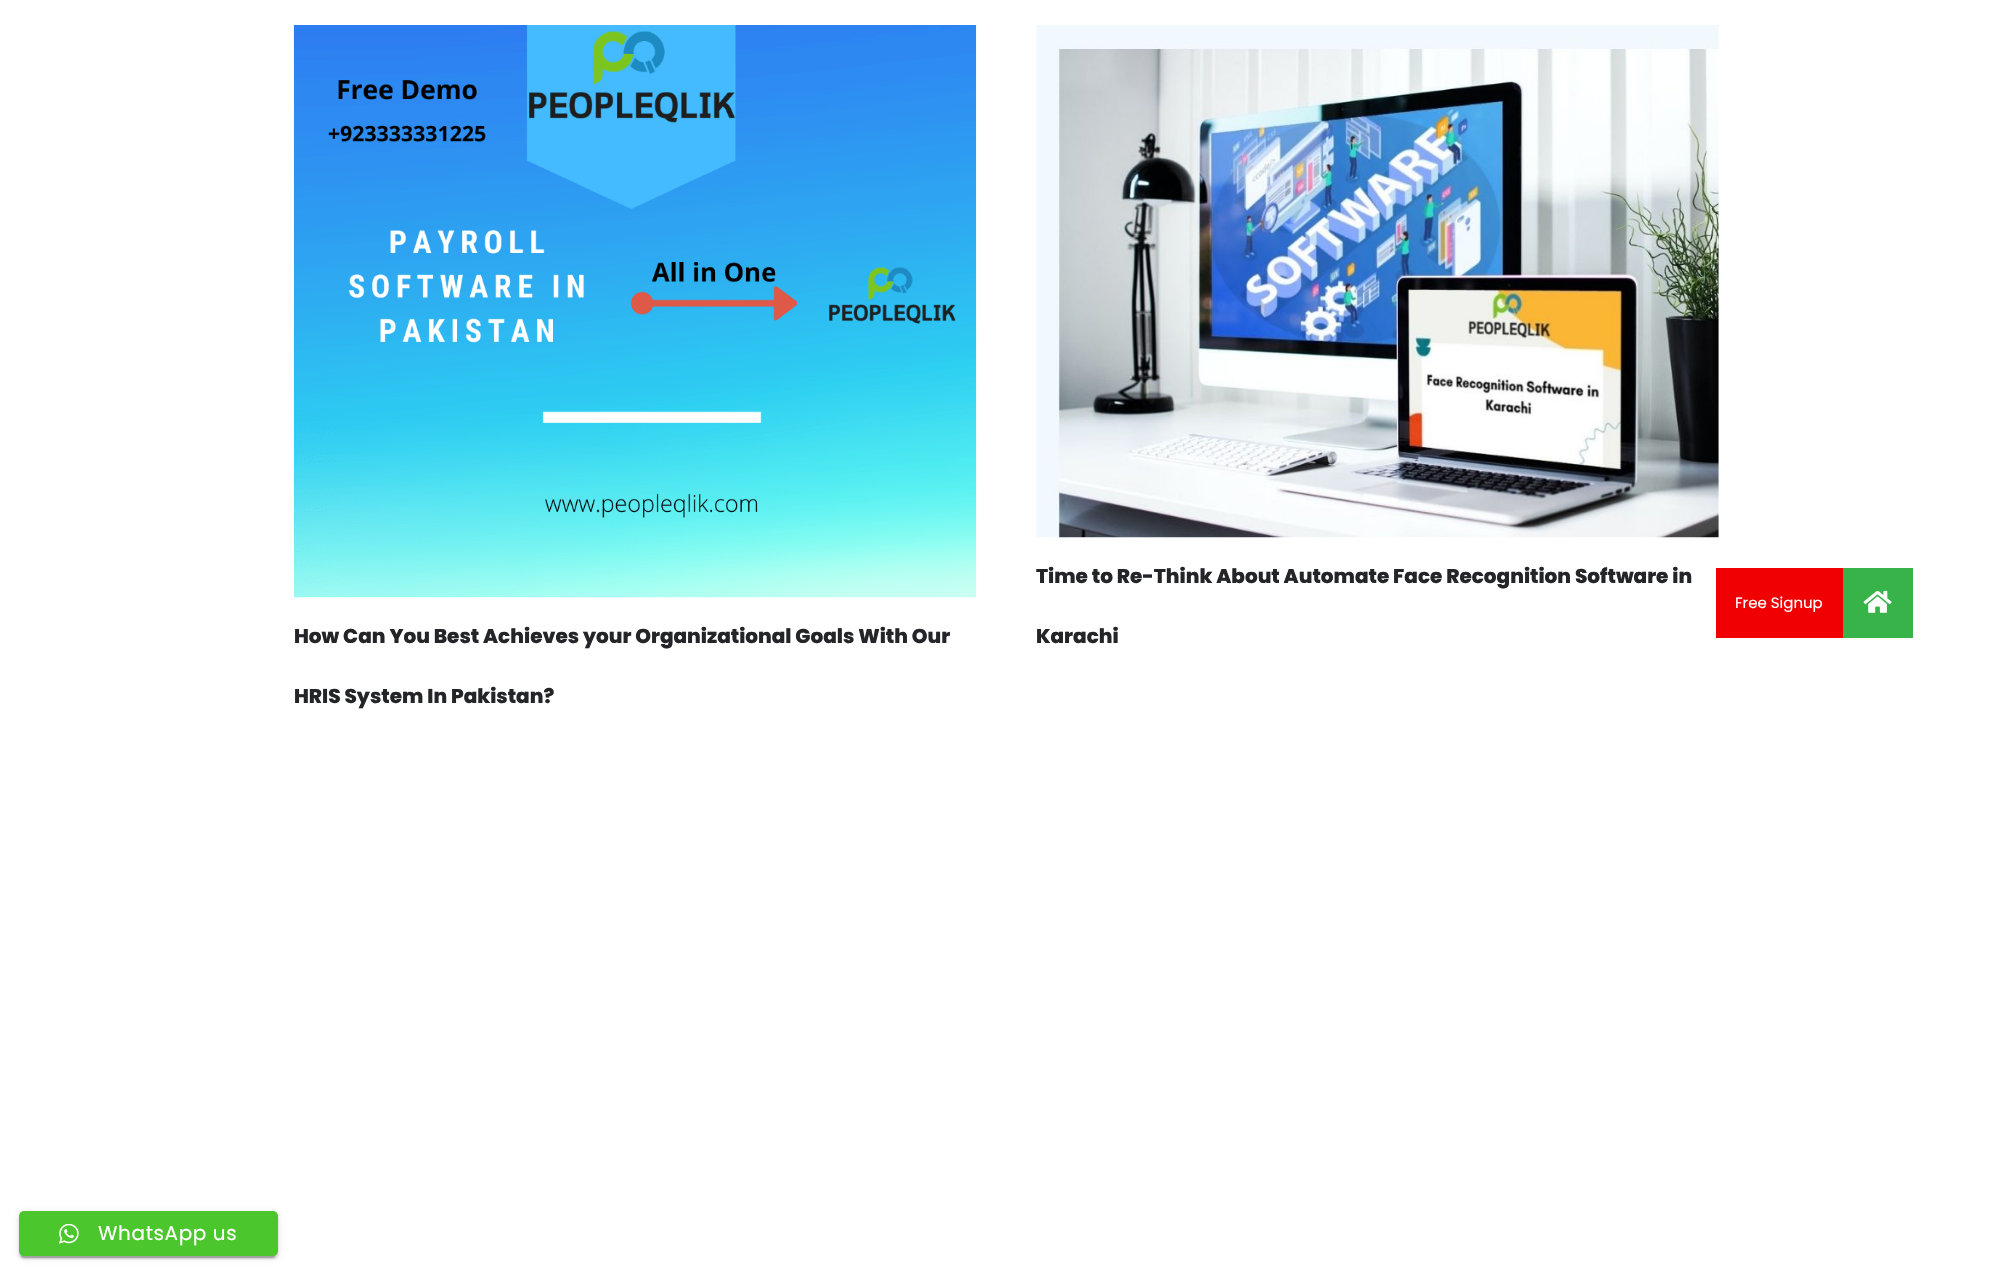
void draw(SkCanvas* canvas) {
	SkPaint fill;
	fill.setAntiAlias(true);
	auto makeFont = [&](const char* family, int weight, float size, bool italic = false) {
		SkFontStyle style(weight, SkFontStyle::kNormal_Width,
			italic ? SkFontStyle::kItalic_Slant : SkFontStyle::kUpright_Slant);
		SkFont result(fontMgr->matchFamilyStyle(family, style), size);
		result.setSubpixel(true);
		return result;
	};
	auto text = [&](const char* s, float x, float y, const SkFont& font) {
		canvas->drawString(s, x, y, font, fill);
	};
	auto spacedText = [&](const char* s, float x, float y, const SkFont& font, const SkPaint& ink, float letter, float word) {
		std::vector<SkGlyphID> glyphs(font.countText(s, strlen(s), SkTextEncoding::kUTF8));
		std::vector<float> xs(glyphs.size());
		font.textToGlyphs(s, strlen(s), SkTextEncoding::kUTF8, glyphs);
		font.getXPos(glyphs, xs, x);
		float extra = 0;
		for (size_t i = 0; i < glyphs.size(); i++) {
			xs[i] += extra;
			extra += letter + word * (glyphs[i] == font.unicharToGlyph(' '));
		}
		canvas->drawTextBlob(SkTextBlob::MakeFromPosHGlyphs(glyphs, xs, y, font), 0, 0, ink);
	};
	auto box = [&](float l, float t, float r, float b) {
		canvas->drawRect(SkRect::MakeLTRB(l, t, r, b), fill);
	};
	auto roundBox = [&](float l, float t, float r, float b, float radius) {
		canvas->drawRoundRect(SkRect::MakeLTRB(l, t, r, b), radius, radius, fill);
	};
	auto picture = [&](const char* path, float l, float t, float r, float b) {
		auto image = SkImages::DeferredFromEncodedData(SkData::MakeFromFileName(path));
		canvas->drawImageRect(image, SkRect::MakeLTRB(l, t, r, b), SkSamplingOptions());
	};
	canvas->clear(0xFFFFFFFF);
	picture("image0.png", 1036, 25, 1719, 538);
	picture("image1.png", 293, 25, 977, 598);
	fill.setColor(0xFF37B34A);
	box(1843, 568, 1913, 638);
	fill.setColor(0xFFF00002);
	box(1716, 568, 1843, 638);
	picture("image2.png", 1863, 590, 1892, 613);
	fill.setColor(0x33000000);
	fill.setMaskFilter(SkMaskFilter::MakeBlur(kNormal_SkBlurStyle, 0.5f));
	canvas->drawRoundRect(SkRect::MakeLTRB(21, 1218, 275, 1258), 2.5f, 2.5f, fill);
	fill.setMaskFilter(nullptr);
	fill.setColor(0x1F000000);
	fill.setMaskFilter(SkMaskFilter::MakeBlur(kNormal_SkBlurStyle, 3));
	canvas->drawRoundRect(SkRect::MakeLTRB(19, 1213, 278, 1258), 5, 5, fill);
	fill.setMaskFilter(nullptr);
	fill.setColor(0x24000000);
	fill.setMaskFilter(SkMaskFilter::MakeBlur(kNormal_SkBlurStyle, 1));
	canvas->drawRoundRect(SkRect::MakeLTRB(19, 1214, 278, 1259), 5, 5, fill);
	fill.setMaskFilter(nullptr);
	fill.setColor(0xFF4CC62D);
	roundBox(19, 1211, 278, 1256, 5);
	picture("image3.png", 59, 1224, 79, 1244);
	auto font1 = makeFont("Poppins", 800, 20);
	fill.setColor(0xFF232529);
	text("Time to Re-Think About Automate Face Recognition Software in", 1036, 583, font1);
	text("Karachi", 1036, 643, font1);
	text("How Can You Best Achieves your Organizational Goals With Our", 294, 643, font1);
	text("HRIS System In Pakistan?", 294, 703, font1);
	auto font2 = makeFont("Poppins", 400, 15);
	fill.setColor(0xFFFFFFFF);
	text("Free Signup", 1735, 608, font2);
	auto font3 = makeFont("Poppins", 400, 20);
	spacedText("WhatsApp us", 98, 1240, font3, fill, 0.6f, 0);
}
